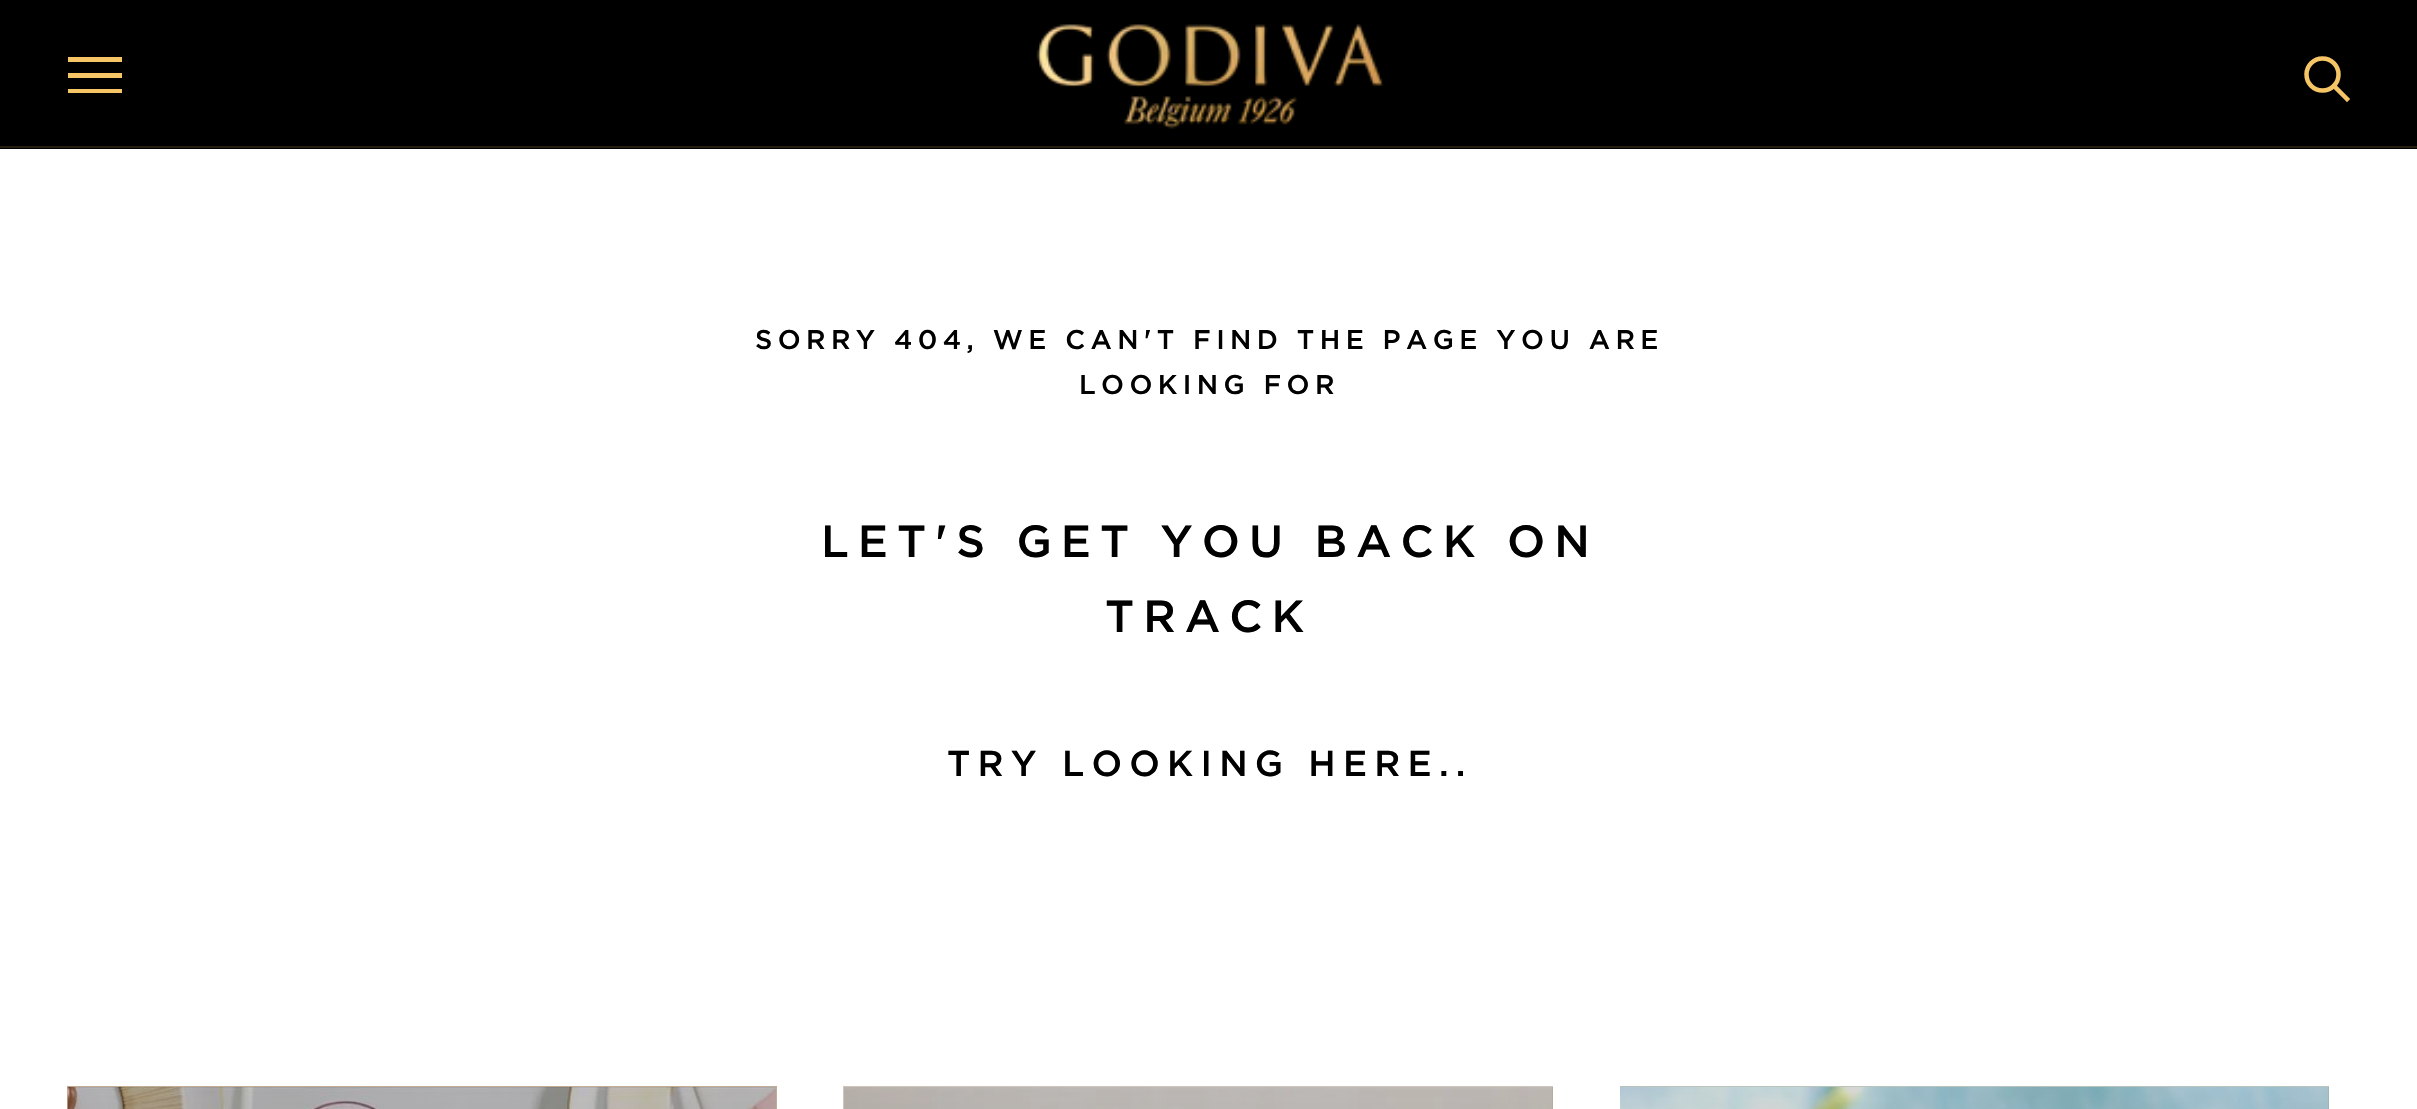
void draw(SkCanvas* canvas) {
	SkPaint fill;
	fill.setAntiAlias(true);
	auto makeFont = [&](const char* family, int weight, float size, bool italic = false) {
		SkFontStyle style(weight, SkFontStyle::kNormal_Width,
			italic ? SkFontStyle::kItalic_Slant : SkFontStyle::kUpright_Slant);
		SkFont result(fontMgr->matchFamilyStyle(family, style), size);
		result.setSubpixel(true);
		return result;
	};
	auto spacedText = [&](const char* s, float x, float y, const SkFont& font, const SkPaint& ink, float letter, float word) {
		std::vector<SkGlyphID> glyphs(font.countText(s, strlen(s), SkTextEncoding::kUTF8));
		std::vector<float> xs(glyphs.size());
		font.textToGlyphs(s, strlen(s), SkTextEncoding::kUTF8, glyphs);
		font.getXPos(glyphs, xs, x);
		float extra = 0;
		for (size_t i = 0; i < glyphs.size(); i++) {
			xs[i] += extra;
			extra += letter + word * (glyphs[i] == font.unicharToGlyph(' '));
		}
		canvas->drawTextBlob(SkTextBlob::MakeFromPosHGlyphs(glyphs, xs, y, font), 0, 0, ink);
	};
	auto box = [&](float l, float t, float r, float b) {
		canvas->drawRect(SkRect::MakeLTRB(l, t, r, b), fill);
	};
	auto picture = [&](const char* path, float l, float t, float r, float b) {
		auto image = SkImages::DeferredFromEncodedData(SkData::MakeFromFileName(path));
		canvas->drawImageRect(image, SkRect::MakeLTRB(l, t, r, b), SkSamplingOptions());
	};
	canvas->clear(0xFFFFFFFF);
	fill.setColor(0xFF000000);
	box(0, 0, 2417, 149);
	fill.setColor(0xFF251E0F);
	box(0, 146, 2417, 148);
	fill.setColor(0xFFF6C566);
	canvas->drawPath(SkPathBuilder().moveTo(68, 93).lineTo(68, 89).lineTo(122, 89).lineTo(122, 93).close().moveTo(68, 73).lineTo(122, 73).lineTo(122, 78).lineTo(68, 78).close().moveTo(68, 57).lineTo(122, 57).lineTo(122, 62).lineTo(68, 62).close().detach(), fill);
	picture("image0.png", 1036, 24, 1384, 129);
	fill.setStyle(SkPaint::kStroke_Style);
	fill.setStrokeWidth(4.5f);
	fill.setStrokeCap(SkPaint::kSquare_Cap);
	canvas->drawPath(SkPathBuilder().moveTo(2347, 99).lineTo(2334, 86).detach(), fill);
	fill.setStrokeCap(SkPaint::kButt_Cap);
	canvas->drawCircle(2322.5f, 74.5f, 16, fill);
	fill.setStyle(SkPaint::kFill_Style);
	fill.setColor(0xFFC3AC92);
	box(67, 1086, 777, 1109);
	picture("image1.png", 67, 1086, 776, 1109);
	fill.setColor(0xFFCFC5BB);
	box(843, 1086, 1553, 1109);
	picture("image2.png", 844, 1087, 1553, 1109);
	{
		const SkColor colors[] = {0xA6040404, 0x33363636};
		const float stops[] = {0, 1};
		const SkPoint ends[] = {{1198, 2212}, {1198, 1087}};
		fill.setShader(SkGradientShader::MakeLinear(ends, colors, stops, 2, SkTileMode::kClamp));
		fill.setAlpha(255);
	}
	box(844, 1087, 1553, 1109);
	fill.setShader(nullptr);
	fill.setColor(0xFFB9C1B8);
	box(1620, 1086, 2329, 1109);
	picture("image3.png", 1620, 1086, 2329, 1109);
	{
		const SkColor colors[] = {0xA6040404, 0x33363636};
		const float stops[] = {0, 1};
		const SkPoint ends[] = {{1974, 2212}, {1974, 1087}};
		fill.setShader(SkGradientShader::MakeLinear(ends, colors, stops, 2, SkTileMode::kClamp));
		fill.setAlpha(255);
	}
	box(1620, 1087, 2329, 1109);
	auto font1 = makeFont("Gotham", 500, 27);
	fill.setShader(nullptr);
	fill.setColor(0xFF000000);
	spacedText("SORRY 404, WE CAN'T FIND THE PAGE YOU ARE", 755, 349, font1, fill, 5.4f, 0);
	spacedText("LOOKING FOR", 1079, 394, font1, fill, 5.4f, 0);
	auto font2 = makeFont("Gotham", 500, 45);
	spacedText("LET'S GET YOU BACK ON", 821, 557, font2, fill, 9, 0);
	spacedText("TRACK", 1105, 632, font2, fill, 9, 0);
	auto font3 = makeFont("Gotham", 500, 36);
	spacedText("TRY LOOKING HERE..", 947, 776, font3, fill, 7.25f, 0);
}
